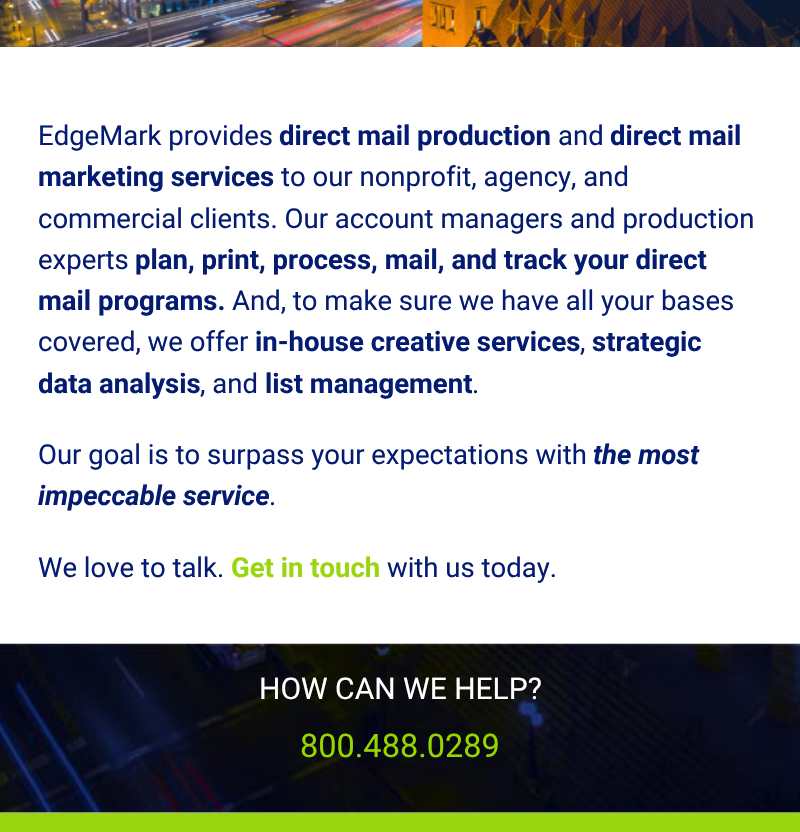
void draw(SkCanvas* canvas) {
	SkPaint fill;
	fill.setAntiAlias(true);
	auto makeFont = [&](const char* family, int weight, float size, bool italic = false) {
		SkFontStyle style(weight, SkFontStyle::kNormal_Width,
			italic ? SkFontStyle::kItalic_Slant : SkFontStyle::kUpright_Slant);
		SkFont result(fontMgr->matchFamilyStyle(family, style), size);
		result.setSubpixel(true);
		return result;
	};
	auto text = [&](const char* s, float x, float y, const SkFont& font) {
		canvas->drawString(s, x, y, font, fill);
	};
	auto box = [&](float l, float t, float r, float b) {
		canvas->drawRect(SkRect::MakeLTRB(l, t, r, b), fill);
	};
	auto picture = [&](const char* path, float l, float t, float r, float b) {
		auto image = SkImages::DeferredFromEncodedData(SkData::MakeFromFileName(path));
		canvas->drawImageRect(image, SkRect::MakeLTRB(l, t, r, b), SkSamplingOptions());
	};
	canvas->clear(0xFFFFFFFF);
	picture("image0.png", 0, 0, 800, 47);
	picture("image1.png", 0, 643, 800, 813);
	fill.setColor(0xFF9AD60E);
	box(0, 813, 800, 832);
	auto font1 = makeFont("Roboto", 400, 27.5f);
	fill.setColor(0xFF041B72);
	text("EdgeMark provides", 38, 145, font1);
	auto font2 = makeFont("Roboto", 700, 27.5f);
	text("direct mail production", 279, 145, font2);
	text("and", 558, 145, font1);
	text("direct mail", 610, 145, font2);
	text("marketing services", 38, 186, font2);
	text("to our nonprofit, agency, and", 281, 186, font1);
	text("commercial clients. Our account managers and production", 38, 228, font1);
	text("experts", 38, 269, font1);
	text("plan, print, process, mail, and track your direct", 135, 269, font2);
	text("mail programs.", 38, 310, font2);
	text("And, to make sure we have all your bases", 232, 310, font1);
	text("covered, we offer", 38, 351, font1);
	text("in-house creative services", 255, 351, font2);
	text(",", 580, 351, font1);
	text("strategic", 592, 351, font2);
	text("data analysis", 38, 393, font2);
	text(", and", 200, 393, font1);
	text("list management", 265, 393, font2);
	text(".", 472, 393, font1);
	text("Our goal is to surpass your expectations with", 38, 464, font1);
	auto font3 = makeFont("Roboto", 700, 27.5f, true);
	text("the most", 593, 464, font3);
	text("impeccable service", 38, 505, font3);
	text(".", 269, 505, font1);
	text("We love to talk.", 38, 577, font1);
	fill.setColor(0xFF9AD60E);
	text("Get in touch", 231, 577, font2);
	fill.setColor(0xFF041B72);
	text("with us today.", 387, 577, font1);
	auto font4 = makeFont("Roboto", 400, 30);
	fill.setColor(0xFFFFFFFF);
	text("HOW CAN WE HELP?", 259, 699, font4);
	auto font5 = makeFont("Roboto", 400, 32.5f);
	fill.setColor(0xFF96D700);
	text("800.488.0289", 300, 757, font5);
}
